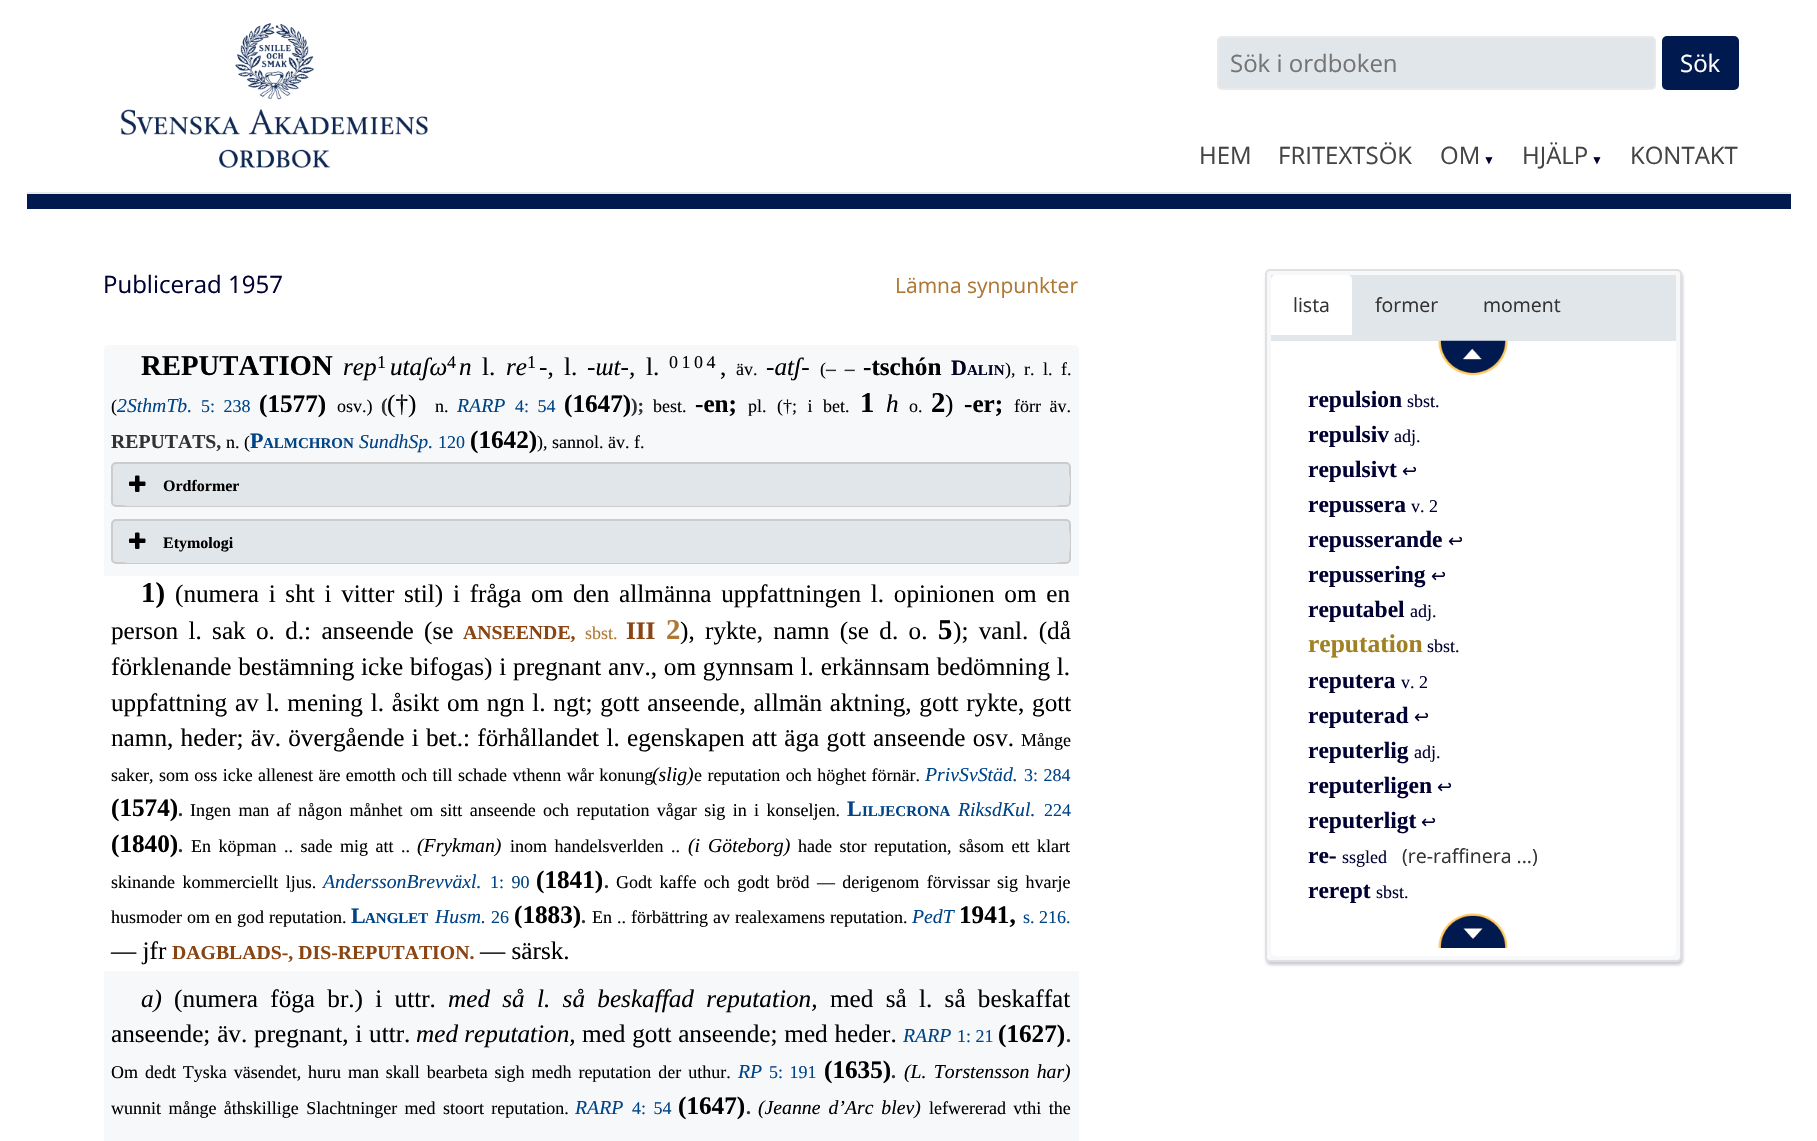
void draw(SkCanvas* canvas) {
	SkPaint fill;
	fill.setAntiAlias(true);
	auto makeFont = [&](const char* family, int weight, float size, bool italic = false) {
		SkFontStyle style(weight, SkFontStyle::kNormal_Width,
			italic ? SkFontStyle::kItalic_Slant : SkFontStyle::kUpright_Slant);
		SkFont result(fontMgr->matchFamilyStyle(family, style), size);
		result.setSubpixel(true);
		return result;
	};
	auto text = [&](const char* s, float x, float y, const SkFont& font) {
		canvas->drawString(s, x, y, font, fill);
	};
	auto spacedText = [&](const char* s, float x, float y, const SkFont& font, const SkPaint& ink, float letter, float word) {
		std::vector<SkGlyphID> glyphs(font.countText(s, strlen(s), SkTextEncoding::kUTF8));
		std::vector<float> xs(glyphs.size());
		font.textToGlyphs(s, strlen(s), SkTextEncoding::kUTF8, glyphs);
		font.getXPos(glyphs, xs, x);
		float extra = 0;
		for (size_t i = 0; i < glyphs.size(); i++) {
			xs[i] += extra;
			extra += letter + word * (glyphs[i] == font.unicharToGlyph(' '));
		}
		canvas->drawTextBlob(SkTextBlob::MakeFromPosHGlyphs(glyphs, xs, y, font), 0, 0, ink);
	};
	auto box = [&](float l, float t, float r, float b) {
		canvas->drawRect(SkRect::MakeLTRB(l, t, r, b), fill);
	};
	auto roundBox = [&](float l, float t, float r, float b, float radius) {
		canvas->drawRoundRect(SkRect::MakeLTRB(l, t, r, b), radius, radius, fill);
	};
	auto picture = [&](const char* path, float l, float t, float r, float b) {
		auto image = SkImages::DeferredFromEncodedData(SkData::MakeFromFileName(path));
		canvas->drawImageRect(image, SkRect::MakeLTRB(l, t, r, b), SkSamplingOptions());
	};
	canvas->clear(0xFFFFFFFF);
	fill.setColor(0xFFEAEAEA);
	box(27, 192, 1791, 194);
	picture("image0.png", 120, 23, 428, 168);
	fill.setColor(0xFFE1E6EA);
	canvas->drawRoundRect(SkRect::MakeLTRB(1218, 37, 1655, 89), 4, 4, fill);
	fill.setStyle(SkPaint::kStroke_Style);
	fill.setStrokeWidth(2);
	fill.setColor(0xFFEAEAEA);
	canvas->drawRoundRect(SkRect::MakeLTRB(1218, 37, 1655, 89), 4, 4, fill);
	fill.setStyle(SkPaint::kFill_Style);
	fill.setColor(0xFF001A50);
	roundBox(1662, 36, 1739, 90, 5);
	box(27, 194, 1791, 209);
	fill.setColor(0xFFF6F8FA);
	roundBox(104, 345, 1079, 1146, 5);
	fill.setColor(0xFFE1E6EA);
	canvas->drawRoundRect(SkRect::MakeLTRB(112, 463, 1070, 506), 4, 4, fill);
	fill.setStyle(SkPaint::kStroke_Style);
	fill.setColor(0xFFCCCCCC);
	canvas->drawRoundRect(SkRect::MakeLTRB(112, 463, 1070, 506), 4, 4, fill);
	fill.setStyle(SkPaint::kFill_Style);
	fill.setColor(0xFFE1E6EA);
	roundBox(113, 464, 1070, 506, 15);
	picture("image1.png", 129, 475, 146, 492);
	canvas->drawRoundRect(SkRect::MakeLTRB(112, 520, 1070, 563), 4, 4, fill);
	fill.setStyle(SkPaint::kStroke_Style);
	fill.setColor(0xFFCCCCCC);
	canvas->drawRoundRect(SkRect::MakeLTRB(112, 520, 1070, 563), 4, 4, fill);
	fill.setStyle(SkPaint::kFill_Style);
	fill.setColor(0xFFE1E6EA);
	roundBox(113, 521, 1070, 563, 15);
	picture("image1.png", 129, 532, 146, 549);
	fill.setColor(0xFFFFFFFF);
	box(104, 576, 1079, 971);
	fill.setColor(0x33000033);
	fill.setMaskFilter(SkMaskFilter::MakeBlur(kNormal_SkBlurStyle, 1.5f));
	canvas->drawRoundRect(SkRect::MakeLTRB(1266, 272, 1683, 965), 5, 5, fill);
	fill.setMaskFilter(nullptr);
	fill.setColor(0xFFF6F8FA);
	canvas->drawRoundRect(SkRect::MakeLTRB(1266, 270, 1681, 961), 4, 4, fill);
	fill.setStyle(SkPaint::kStroke_Style);
	fill.setColor(0xFFE0E0E0);
	canvas->drawRoundRect(SkRect::MakeLTRB(1266, 270, 1681, 961), 4, 4, fill);
	fill.setStyle(SkPaint::kFill_Style);
	fill.setColor(0xFFE1E6EA);
	box(1271, 275, 1676, 341);
	fill.setColor(0xFFFFFFFF);
	canvas->drawPath(SkPathBuilder().moveTo(1276, 275).lineTo(1347, 275).cubicTo(1350, 275, 1352, 277, 1352, 280).lineTo(1352, 335).lineTo(1271, 335).lineTo(1271, 280).cubicTo(1271, 277, 1273, 275, 1276, 275).close().detach(), fill);
	canvas->drawPath(SkPathBuilder().moveTo(1271, 341).lineTo(1676, 341).lineTo(1676, 951).cubicTo(1676, 954, 1674, 956, 1671, 956).lineTo(1276, 956).cubicTo(1273, 956, 1271, 954, 1271, 951).close().detach(), fill);
	picture("image2.png", 1438, 340, 1508, 375);
	picture("image3.png", 1438, 913, 1508, 948);
	auto font1 = makeFont("Open Sans", 400, 24);
	fill.setColor(0xFF757575);
	text("Sök i ordboken", 1230, 72, font1);
	fill.setColor(0xFFFFFFFF);
	text("Sök", 1680, 72, font1);
	fill.setColor(0xFF444444);
	text("HEM", 1199, 164, font1);
	text("FRITEXTSÖK", 1278, 164, font1);
	text("OM", 1440, 164, font1);
	auto font2 = makeFont("Liberation Serif", 400, 12);
	fill.setColor(0xFF000033);
	text("▼", 1483, 164, font2);
	fill.setColor(0xFF444444);
	text("HJÄLP", 1522, 164, font1);
	fill.setColor(0xFF000033);
	text("▼", 1591, 164, font2);
	fill.setColor(0xFF444444);
	text("KONTAKT", 1630, 164, font1);
	fill.setColor(0xFF000033);
	text("Publicerad 1957", 103, 293, font1);
	auto font3 = makeFont("Open Sans", 400, 21);
	fill.setColor(0xFFAE7834);
	text("Lämna synpunkter", 895, 293, font3);
	auto font4 = makeFont("Liberation Serif", 700, 28.75f);
	fill.setColor(0xFF000000);
	text("REPUTATION", 141, 375, font4);
	auto font5 = makeFont("Liberation Serif", 400, 25.2f, true);
	text("rep", 343, 375, font5);
	auto font6 = makeFont("Liberation Serif", 400, 18);
	spacedText("1", 377, 368, font6, fill, 3.5f, 0);
	text("utaʃω", 390, 375, font5);
	spacedText("4", 447, 368, font6, fill, 3.5f, 0);
	text("n", 459, 375, font5);
	auto font7 = makeFont("Liberation Serif", 400, 25.2f);
	text("l.", 482, 375, font7);
	text("re", 506, 375, font5);
	spacedText("1", 527, 368, font6, fill, 3.5f, 0);
	spacedText("-, l.", 539, 375, font7, fill, 0, 4);
	text("-ɯt-,", 587, 375, font5);
	text("l.", 646, 375, font7);
	spacedText("0104", 669, 368, font6, fill, 3.5f, 0);
	text("äv.", 736, 375, font6);
	text("-atʃ-", 766, 375, font5);
	text("(", 820, 375, font6);
	auto font8 = makeFont("Liberation Serif", 700, 19.75f);
	fill.setColor(0xFF333333);
	spacedText("– –", 826, 375, font8, fill, 0, 4);
	auto font9 = makeFont("Liberation Serif", 700, 25.2f);
	fill.setColor(0xFF000000);
	text("-tschón", 863, 375, font9);
	auto font10 = makeFont("Liberation Serif", 700, 22);
	fill.setColor(0xFF000020);
	text("D", 951, 375, font10);
	auto font11 = makeFont("Liberation Serif", 700, 15);
	text("ALIN", 967, 375, font11);
	fill.setColor(0xFF000000);
	spacedText("), r. l. f.", 1005, 375, font6, fill, 0, 4);
	text(",", 720, 375, font7);
	text("(", 111, 412, font6);
	auto font12 = makeFont("Liberation Serif", 400, 19.75f, true);
	fill.setColor(0xFF004488);
	text("2SthmTb.", 117, 412, font12);
	spacedText("5: 238", 201, 412, font6, fill, 0, 4);
	fill.setColor(0xFF000000);
	text("(1577)", 259, 412, font9);
	text("osv.)", 337, 412, font6);
	fill.setColor(0xFF333333);
	text("(", 381, 412, font8);
	fill.setColor(0xFF000000);
	text("(†)", 387, 412, font7);
	text("n.", 435, 412, font6);
	fill.setColor(0xFF004488);
	text("RARP", 457, 412, font12);
	spacedText("4: 54", 515, 412, font6, fill, 0, 4);
	fill.setColor(0xFF000000);
	text("(1647)", 564, 412, font9);
	fill.setColor(0xFF333333);
	text(");", 631, 412, font8);
	fill.setColor(0xFF000000);
	text("best.", 653, 412, font6);
	text("-en;", 695, 412, font9);
	spacedText("pl. (†; i bet.", 748, 412, font6, fill, 0, 6);
	text("1", 860, 412, font4);
	text("h", 886, 412, font5);
	text("o.", 909, 412, font6);
	text("2", 931, 412, font4);
	text(")", 945, 412, font7);
	text("-er;", 964, 412, font9);
	spacedText("förr äv.", 1014, 412, font6, fill, 0, 4);
	fill.setColor(0xFF333333);
	text("REPUTATS,", 111, 448, font8);
	fill.setColor(0xFF000000);
	text("n. (", 226, 448, font6);
	fill.setColor(0xFF004488);
	text("P", 250, 448, font10);
	text("ALMCHRON", 263, 448, font11);
	text("SundhSp.", 359, 448, font12);
	text("120", 438, 448, font6);
	fill.setColor(0xFF000000);
	text("(1642)", 470, 448, font9);
	text("), sannol. äv. f.", 537, 448, font6);
	auto font13 = makeFont("Liberation Serif", 700, 16);
	text("Ordformer", 163, 491, font13);
	text("Etymologi", 163, 548, font13);
	text("1)", 141, 602, font4);
	spacedText("(numera i sht i vitter stil) i fråga om den allmänna uppfattningen l. opinionen om en", 175, 602, font7, fill, 0, 3.4f);
	spacedText("person l. sak o. d.: anseende (se", 111, 639, font7, fill, 0, 4);
	fill.setColor(0xFF8B4513);
	text("ANSEENDE,", 463, 639, font8);
	fill.setColor(0xFFAE7834);
	text("sbst.", 585, 639, font6);
	fill.setColor(0xFF8B4513);
	text("III", 626, 639, font9);
	fill.setColor(0xFFAE7834);
	text("2", 666, 639, font4);
	fill.setColor(0xFF000000);
	spacedText("), rykte, namn (se d. o.", 680, 639, font7, fill, 0, 4);
	text("5", 938, 639, font4);
	spacedText("); vanl. (då", 953, 639, font7, fill, 0, 4);
	spacedText("förklenande bestämning icke bifogas) i pregnant anv., om gynnsam l. erkännsam bedömning l.", 111, 675, font7, fill, 0, 0.5f);
	spacedText("uppfattning av l. mening l. åsikt om ngn l. ngt; gott anseende, allmän aktning, gott rykte, gott", 111, 711, font7, fill, 0, 1.4f);
	spacedText("namn, heder; äv. övergående i bet.: förhållandet l. egenskapen att äga gott anseende osv.", 111, 746, font7, fill, 0, 1);
	text("Månge", 1021, 746, font6);
	spacedText("saker, som oss icke allenest äre emotth och till schade vthenn wår konung", 111, 781, font6, fill, 0, 0.9f);
	text("(slig)", 652, 781, font12);
	spacedText("e reputation och höghet förnär.", 694, 781, font6, fill, 0, 0.9f);
	fill.setColor(0xFF004488);
	text("PrivSvStäd.", 925, 781, font12);
	spacedText("3: 284", 1024, 781, font6, fill, 0, 0.9f);
	fill.setColor(0xFF000000);
	text("(1574)", 111, 816, font9);
	fill.setColor(0xFF333333);
	text(".", 178, 816, font8);
	fill.setColor(0xFF000000);
	spacedText("Ingen man af någon månhet om sitt anseende och reputation vågar sig in i konseljen.", 190, 816, font6, fill, 0, 2.9f);
	fill.setColor(0xFF004488);
	text("L", 847, 816, font10);
	text("ILJECRONA", 862, 816, font11);
	text("RiksdKul.", 958, 816, font12);
	text("224", 1044, 816, font6);
	fill.setColor(0xFF000000);
	text("(1840)", 111, 852, font9);
	fill.setColor(0xFF333333);
	text(".", 178, 852, font8);
	fill.setColor(0xFF000000);
	spacedText("En köpman .. sade mig att ..", 191, 852, font6, fill, 0, 3);
	text("(Frykman)", 417, 852, font12);
	spacedText("inom handelsverlden ..", 510, 852, font6, fill, 0, 3);
	spacedText("(i Göteborg)", 688, 852, font12, fill, 0, 3);
	spacedText("hade stor reputation, såsom ett klart", 798, 852, font6, fill, 0, 3);
	spacedText("skinande kommerciellt ljus.", 111, 888, font6, fill, 0, 2.9f);
	fill.setColor(0xFF004488);
	text("AnderssonBrevväxl.", 323, 888, font12);
	spacedText("1: 90", 490, 888, font6, fill, 0, 2.9f);
	fill.setColor(0xFF000000);
	text("(1841)", 536, 888, font9);
	fill.setColor(0xFF333333);
	text(".", 604, 888, font8);
	fill.setColor(0xFF000000);
	spacedText("Godt kaffe och godt bröd — derigenom förvissar sig hvarje", 616, 888, font6, fill, 0, 2.9f);
	spacedText("husmoder om en god reputation.", 111, 923, font6, fill, 0, 0.5f);
	fill.setColor(0xFF004488);
	text("L", 351, 923, font10);
	text("ANGLET", 365, 923, font11);
	text("Husm.", 435, 923, font12);
	text("26", 491, 923, font6);
	fill.setColor(0xFF000000);
	text("(1883)", 514, 923, font9);
	fill.setColor(0xFF333333);
	text(".", 581, 923, font8);
	fill.setColor(0xFF000000);
	spacedText("En .. förbättring av realexamens reputation.", 592, 923, font6, fill, 0, 0.5f);
	fill.setColor(0xFF004488);
	text("PedT", 912, 923, font12);
	fill.setColor(0xFF000000);
	text("1941,", 959, 923, font9);
	fill.setColor(0xFF004488);
	text("s. 216.", 1023, 923, font6);
	fill.setColor(0xFF000000);
	text("— jfr", 111, 959, font7);
	fill.setColor(0xFF8B4513);
	text("DAGBLADS-, DIS-REPUTATION.", 172, 959, font8);
	fill.setColor(0xFF000000);
	text("— särsk.", 480, 959, font7);
	text("a)", 141, 1007, font5);
	spacedText("(numera föga br.) i uttr.", 174, 1007, font7, fill, 0, 6);
	spacedText("med så l. så beskaffad reputation,", 448, 1007, font5, fill, 0, 6);
	spacedText("med så l. så beskaffat", 830, 1007, font7, fill, 0, 6);
	spacedText("anseende; äv. pregnant, i uttr.", 111, 1042, font7, fill, 0, 0.5f);
	text("med reputation,", 416, 1042, font5);
	spacedText("med gott anseende; med heder.", 582, 1042, font7, fill, 0, 0.5f);
	fill.setColor(0xFF004488);
	text("RARP", 903, 1042, font12);
	text("1: 21", 957, 1042, font6);
	fill.setColor(0xFF000000);
	text("(1627)", 998, 1042, font9);
	fill.setColor(0xFF333333);
	text(".", 1066, 1042, font8);
	fill.setColor(0xFF000000);
	spacedText("Om dedt Tyska väsendet, huru man skall bearbeta sigh medh reputation der uthur.", 111, 1078, font6, fill, 0, 2.4f);
	fill.setColor(0xFF004488);
	text("RP", 738, 1078, font12);
	spacedText("5: 191", 769, 1078, font6, fill, 0, 2);
	fill.setColor(0xFF000000);
	text("(1635)", 824, 1078, font9);
	fill.setColor(0xFF333333);
	text(".", 891, 1078, font8);
	fill.setColor(0xFF000000);
	spacedText("(L. Torstensson har)", 904, 1078, font12, fill, 0, 2.4f);
	spacedText("wunnit månge åthskillige Slachtninger med stoort reputation.", 111, 1114, font6, fill, 0, 2.9f);
	fill.setColor(0xFF004488);
	text("RARP", 575, 1114, font12);
	spacedText("4: 54", 632, 1114, font6, fill, 0, 2.9f);
	fill.setColor(0xFF000000);
	text("(1647)", 678, 1114, font9);
	fill.setColor(0xFF333333);
	text(".", 746, 1114, font8);
	fill.setColor(0xFF000000);
	spacedText("(Jeanne d’Arc blev)", 758, 1114, font12, fill, 0, 3);
	spacedText("lefwererad vthi the", 929, 1114, font6, fill, 0, 2.9f);
	auto font14 = makeFont("Open Sans", 400, 19.5f);
	fill.setColor(0xFF333333);
	text("lista", 1293, 312, font14);
	text("former", 1375, 312, font14);
	text("moment", 1483, 312, font14);
	auto font15 = makeFont("Liberation Serif", 700, 23.5f);
	fill.setColor(0xFF000033);
	text("repulsion", 1308, 407, font15);
	text("sbst.", 1407, 407, font6);
	text("repulsiv", 1308, 442, font15);
	text("adj.", 1394, 442, font6);
	text("repulsivt", 1308, 477, font15);
	auto font16 = makeFont("DejaVu Sans", 400, 18);
	text("↩", 1402, 477, font16);
	text("repussera", 1308, 512, font15);
	text("v. 2", 1411, 512, font6);
	text("repusserande", 1308, 547, font15);
	text("↩", 1448, 547, font16);
	text("repussering", 1308, 582, font15);
	text("↩", 1431, 582, font16);
	text("reputabel", 1308, 617, font15);
	text("adj.", 1410, 617, font6);
	auto font17 = makeFont("Liberation Serif", 700, 25.5f);
	fill.setColor(0xFFA08020);
	text("reputation", 1308, 652, font17);
	fill.setColor(0xFF000033);
	text("sbst.", 1427, 652, font6);
	text("reputera", 1308, 688, font15);
	text("v. 2", 1401, 688, font6);
	text("reputerad", 1308, 723, font15);
	text("↩", 1414, 723, font16);
	text("reputerlig", 1308, 758, font15);
	text("adj.", 1414, 758, font6);
	text("reputerligen", 1308, 793, font15);
	text("↩", 1437, 793, font16);
	text("reputerligt", 1308, 828, font15);
	text("↩", 1421, 828, font16);
	text("re-", 1308, 863, font15);
	text("ssgled", 1342, 863, font6);
	fill.setColor(0xFF333333);
	text("(re-raffinera ...)", 1402, 863, font14);
	fill.setColor(0xFF000033);
	text("rerept", 1308, 898, font15);
	text("sbst.", 1376, 898, font6);
}
